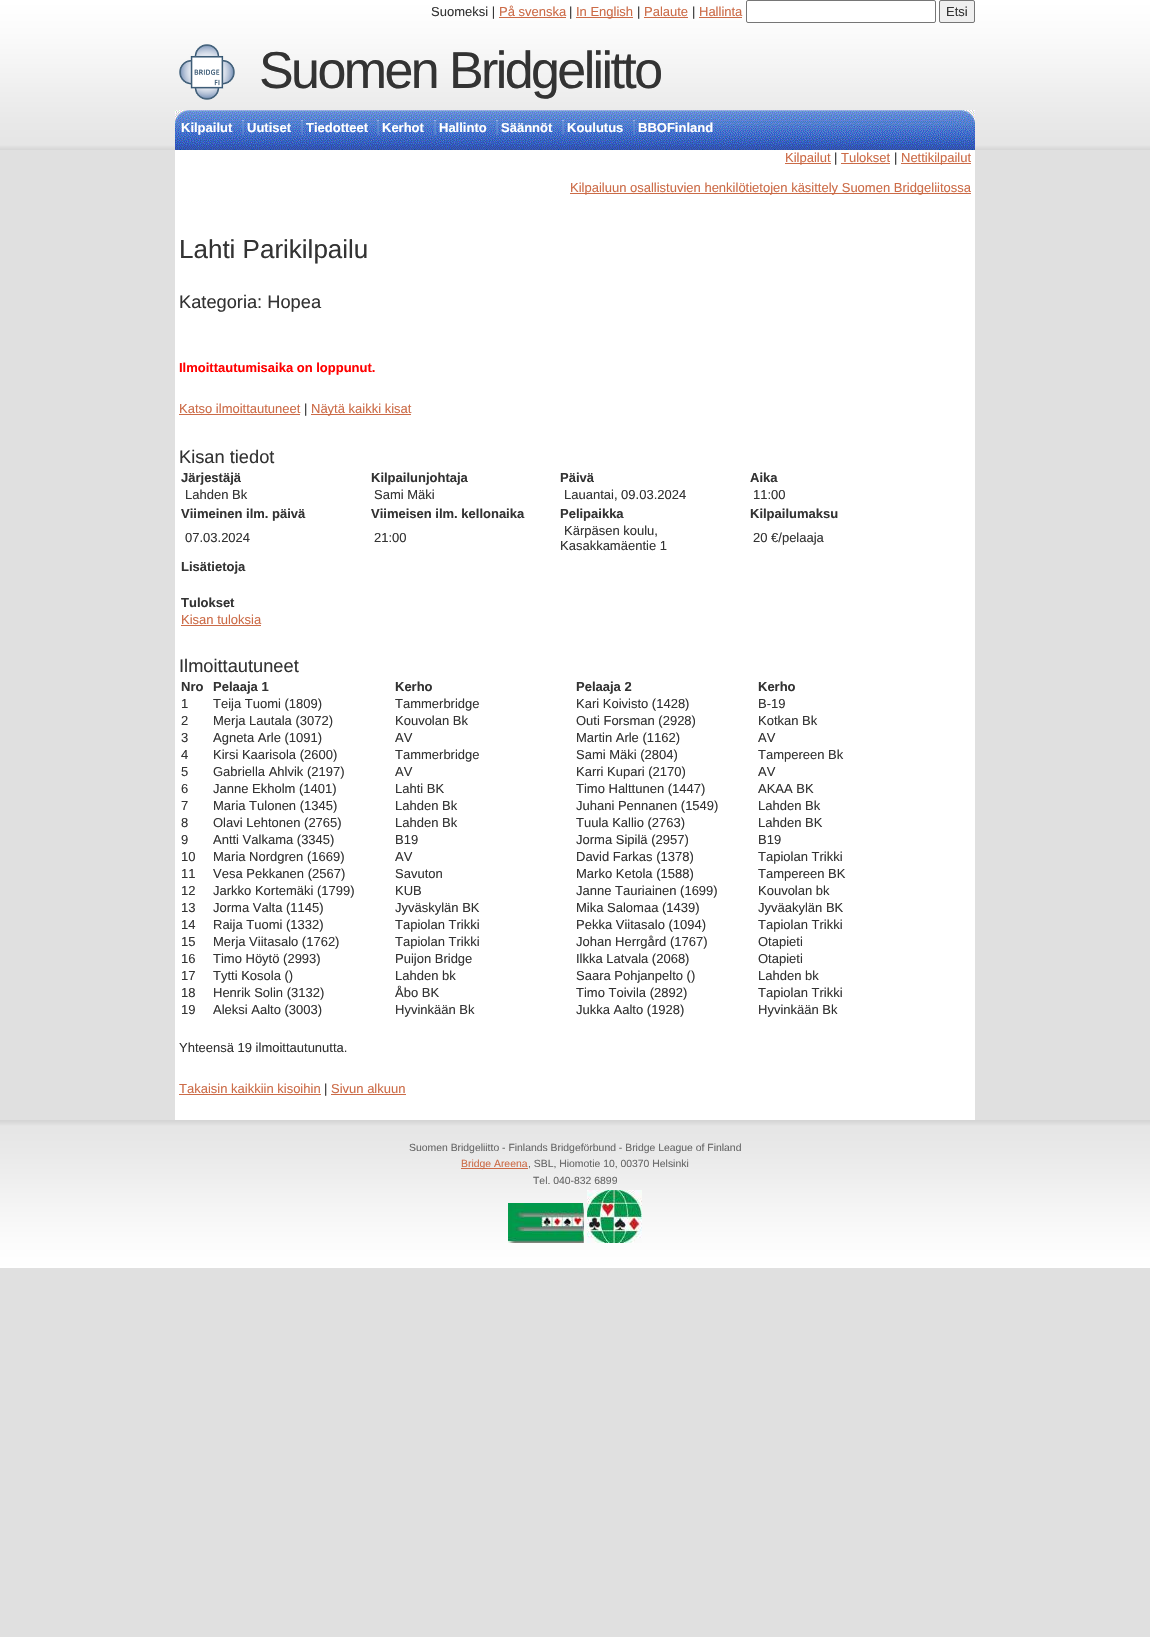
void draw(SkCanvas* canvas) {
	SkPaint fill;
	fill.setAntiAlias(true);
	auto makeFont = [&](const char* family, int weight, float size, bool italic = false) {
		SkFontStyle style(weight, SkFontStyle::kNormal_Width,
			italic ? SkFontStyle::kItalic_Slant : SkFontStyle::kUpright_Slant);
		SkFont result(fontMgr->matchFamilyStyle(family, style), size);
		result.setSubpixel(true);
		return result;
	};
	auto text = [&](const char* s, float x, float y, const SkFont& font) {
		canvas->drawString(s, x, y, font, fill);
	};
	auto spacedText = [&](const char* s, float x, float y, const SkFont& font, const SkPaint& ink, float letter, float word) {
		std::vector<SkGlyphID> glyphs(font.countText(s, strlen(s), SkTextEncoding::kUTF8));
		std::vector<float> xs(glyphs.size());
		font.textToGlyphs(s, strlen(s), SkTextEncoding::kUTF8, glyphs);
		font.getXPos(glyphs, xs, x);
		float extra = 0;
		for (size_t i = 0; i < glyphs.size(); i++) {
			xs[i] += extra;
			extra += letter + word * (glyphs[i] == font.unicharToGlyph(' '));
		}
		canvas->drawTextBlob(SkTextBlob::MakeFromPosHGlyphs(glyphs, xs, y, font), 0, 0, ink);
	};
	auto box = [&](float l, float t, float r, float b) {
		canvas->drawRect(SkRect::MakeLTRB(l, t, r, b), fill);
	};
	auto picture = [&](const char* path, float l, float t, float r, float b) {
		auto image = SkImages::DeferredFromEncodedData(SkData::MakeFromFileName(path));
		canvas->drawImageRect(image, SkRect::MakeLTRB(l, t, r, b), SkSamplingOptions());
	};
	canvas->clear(0xFFE0E0E0);
	picture("image0.png", 0, 0, 1150, 150);
	fill.setColor(0xFFCC6B47);
	box(499, 17, 566, 18);
	box(576, 17, 633, 18);
	box(644, 17, 688, 18);
	box(699, 17, 742, 18);
	fill.setColor(0xFFFFFFFF);
	canvas->drawRoundRect(SkRect::MakeLTRB(746.5f, 0.5f, 935.5f, 22.5f), 1.5f, 1.5f, fill);
	fill.setStyle(SkPaint::kStroke_Style);
	fill.setStrokeWidth(1);
	fill.setColor(0xFF767676);
	canvas->drawRoundRect(SkRect::MakeLTRB(746.5f, 0.5f, 935.5f, 22.5f), 1.5f, 1.5f, fill);
	fill.setStyle(SkPaint::kFill_Style);
	fill.setColor(0xFFEFEFEF);
	canvas->drawRoundRect(SkRect::MakeLTRB(939.5f, 0.5f, 974.5f, 22.5f), 1.5f, 1.5f, fill);
	fill.setStyle(SkPaint::kStroke_Style);
	fill.setColor(0xFF767676);
	canvas->drawRoundRect(SkRect::MakeLTRB(939.5f, 0.5f, 974.5f, 22.5f), 1.5f, 1.5f, fill);
	picture("image1.png", 179, 44, 235, 100);
	picture("image2.png", 175, 110, 975, 150);
	picture("image3.png", 242, 120, 244, 135);
	picture("image3.png", 301, 120, 303, 135);
	picture("image3.png", 377, 120, 379, 135);
	picture("image3.png", 434, 120, 436, 135);
	picture("image3.png", 496, 120, 498, 135);
	picture("image3.png", 562, 120, 564, 135);
	picture("image3.png", 633, 120, 635, 135);
	fill.setStyle(SkPaint::kFill_Style);
	fill.setColor(0xFFFFFFFF);
	box(175, 150, 975, 1120);
	fill.setColor(0xFFCC6B47);
	box(785, 163, 831, 164);
	box(841, 163, 890, 164);
	box(901, 163, 971, 164);
	box(570, 193, 971, 194);
	box(179, 414, 300, 415);
	box(311, 414, 411, 415);
	box(181, 625, 261, 626);
	box(179, 1094, 321, 1095);
	box(331, 1094, 406, 1095);
	picture("image4.png", 0, 1120, 1150, 1268);
	box(461, 1168, 528, 1169);
	picture("image5.png", 508, 1203, 584, 1243);
	picture("image6.png", 587, 1190, 642, 1243);
	auto font1 = makeFont("Liberation Sans", 400, 13);
	fill.setColor(0xFF333333);
	text("Suomeksi |", 431, 16, font1);
	fill.setColor(0xFFCC6B47);
	text("På svenska", 499, 16, font1);
	fill.setColor(0xFF333333);
	text("|", 569, 16, font1);
	fill.setColor(0xFFCC6B47);
	text("In English", 576, 16, font1);
	fill.setColor(0xFF333333);
	text("|", 637, 16, font1);
	fill.setColor(0xFFCC6B47);
	text("Palaute", 644, 16, font1);
	fill.setColor(0xFF333333);
	text("|", 692, 16, font1);
	fill.setColor(0xFFCC6B47);
	text("Hallinta", 699, 16, font1);
	fill.setColor(0xFF333333);
	text("Etsi", 946, 16, font1);
	auto font2 = makeFont("Liberation Sans", 400, 52);
	spacedText("Suomen Bridgeliitto", 259, 88, font2, fill, -2.6f, 0);
	auto font3 = makeFont("Liberation Sans", 700, 13);
	fill.setColor(0xFFFFFFFF);
	text("Kilpailut", 181, 132, font3);
	text("Uutiset", 247, 132, font3);
	text("Tiedotteet", 306, 132, font3);
	text("Kerhot", 382, 132, font3);
	text("Hallinto", 439, 132, font3);
	text("Säännöt", 501, 132, font3);
	text("Koulutus", 567, 132, font3);
	text("BBOFinland", 638, 132, font3);
	fill.setColor(0xFFCC6B47);
	text("Kilpailut", 785, 162, font1);
	fill.setColor(0xFF333333);
	text("|", 834, 162, font1);
	fill.setColor(0xFFCC6B47);
	text("Tulokset", 841, 162, font1);
	fill.setColor(0xFF333333);
	text("|", 894, 162, font1);
	fill.setColor(0xFFCC6B47);
	text("Nettikilpailut", 901, 162, font1);
	text("Kilpailuun osallistuvien henkilötietojen käsittely Suomen Bridgeliitossa", 570, 192, font1);
	auto font4 = makeFont("Liberation Sans", 400, 26);
	fill.setColor(0xFF333333);
	text("Lahti Parikilpailu", 179, 258, font4);
	auto font5 = makeFont("Liberation Sans", 400, 18.25f);
	text("Kategoria: Hopea", 179, 308, font5);
	fill.setColor(0xFFFF0000);
	text("Ilmoittautumisaika on loppunut.", 179, 372, font3);
	fill.setColor(0xFFCC6B47);
	text("Katso ilmoittautuneet", 179, 413, font1);
	fill.setColor(0xFF333333);
	text("|", 304, 413, font1);
	fill.setColor(0xFFCC6B47);
	text("Näytä kaikki kisat", 311, 413, font1);
	fill.setColor(0xFF333333);
	text("Kisan tiedot", 179, 463, font5);
	text("Järjestäjä", 181, 482, font3);
	text("Kilpailunjohtaja", 371, 482, font3);
	text("Päivä", 560, 482, font3);
	text("Aika", 750, 482, font3);
	text("Lahden Bk", 185, 499, font1);
	text("Sami Mäki", 374, 499, font1);
	text("Lauantai, 09.03.2024", 564, 499, font1);
	text("11:00", 753, 499, font1);
	text("Viimeinen ilm. päivä", 181, 518, font3);
	text("Viimeisen ilm. kellonaika", 371, 518, font3);
	text("Pelipaikka", 560, 518, font3);
	text("Kilpailumaksu", 750, 518, font3);
	text("07.03.2024", 185, 542, font1);
	text("21:00", 374, 542, font1);
	text("Kärpäsen koulu,", 564, 535, font1);
	text("Kasakkamäentie 1", 560, 550, font1);
	text("20 €/pelaaja", 753, 542, font1);
	text("Lisätietoja", 181, 571, font3);
	text("Tulokset", 181, 607, font3);
	fill.setColor(0xFFCC6B47);
	text("Kisan tuloksia", 181, 624, font1);
	fill.setColor(0xFF333333);
	text("Ilmoittautuneet", 179, 672, font5);
	text("Nro", 181, 691, font3);
	text("Pelaaja 1", 213, 691, font3);
	text("Kerho", 395, 691, font3);
	text("Pelaaja 2", 576, 691, font3);
	text("Kerho", 758, 691, font3);
	text("1", 181, 708, font1);
	text("Teija Tuomi (1809)", 213, 708, font1);
	text("Tammerbridge", 395, 708, font1);
	text("Kari Koivisto (1428)", 576, 708, font1);
	text("B-19", 758, 708, font1);
	text("2", 181, 725, font1);
	text("Merja Lautala (3072)", 213, 725, font1);
	text("Kouvolan Bk", 395, 725, font1);
	text("Outi Forsman (2928)", 576, 725, font1);
	text("Kotkan Bk", 758, 725, font1);
	text("3", 181, 742, font1);
	text("Agneta Arle (1091)", 213, 742, font1);
	text("AV", 395, 742, font1);
	text("Martin Arle (1162)", 576, 742, font1);
	text("AV", 758, 742, font1);
	text("4", 181, 759, font1);
	text("Kirsi Kaarisola (2600)", 213, 759, font1);
	text("Tammerbridge", 395, 759, font1);
	text("Sami Mäki (2804)", 576, 759, font1);
	text("Tampereen Bk", 758, 759, font1);
	text("5", 181, 776, font1);
	text("Gabriella Ahlvik (2197)", 213, 776, font1);
	text("AV", 395, 776, font1);
	text("Karri Kupari (2170)", 576, 776, font1);
	text("AV", 758, 776, font1);
	text("6", 181, 793, font1);
	text("Janne Ekholm (1401)", 213, 793, font1);
	text("Lahti BK", 395, 793, font1);
	text("Timo Halttunen (1447)", 576, 793, font1);
	text("AKAA BK", 758, 793, font1);
	text("7", 181, 810, font1);
	text("Maria Tulonen (1345)", 213, 810, font1);
	text("Lahden Bk", 395, 810, font1);
	text("Juhani Pennanen (1549)", 576, 810, font1);
	text("Lahden Bk", 758, 810, font1);
	text("8", 181, 827, font1);
	text("Olavi Lehtonen (2765)", 213, 827, font1);
	text("Lahden Bk", 395, 827, font1);
	text("Tuula Kallio (2763)", 576, 827, font1);
	text("Lahden BK", 758, 827, font1);
	text("9", 181, 844, font1);
	text("Antti Valkama (3345)", 213, 844, font1);
	text("B19", 395, 844, font1);
	text("Jorma Sipilä (2957)", 576, 844, font1);
	text("B19", 758, 844, font1);
	text("10", 181, 861, font1);
	text("Maria Nordgren (1669)", 213, 861, font1);
	text("AV", 395, 861, font1);
	text("David Farkas (1378)", 576, 861, font1);
	text("Tapiolan Trikki", 758, 861, font1);
	text("11", 181, 878, font1);
	text("Vesa Pekkanen (2567)", 213, 878, font1);
	text("Savuton", 395, 878, font1);
	text("Marko Ketola (1588)", 576, 878, font1);
	text("Tampereen BK", 758, 878, font1);
	text("12", 181, 895, font1);
	text("Jarkko Kortemäki (1799)", 213, 895, font1);
	text("KUB", 395, 895, font1);
	text("Janne Tauriainen (1699)", 576, 895, font1);
	text("Kouvolan bk", 758, 895, font1);
	text("13", 181, 912, font1);
	text("Jorma Valta (1145)", 213, 912, font1);
	text("Jyväskylän BK", 395, 912, font1);
	text("Mika Salomaa (1439)", 576, 912, font1);
	text("Jyväakylän BK", 758, 912, font1);
	text("14", 181, 929, font1);
	text("Raija Tuomi (1332)", 213, 929, font1);
	text("Tapiolan Trikki", 395, 929, font1);
	text("Pekka Viitasalo (1094)", 576, 929, font1);
	text("Tapiolan Trikki", 758, 929, font1);
	text("15", 181, 946, font1);
	text("Merja Viitasalo (1762)", 213, 946, font1);
	text("Tapiolan Trikki", 395, 946, font1);
	text("Johan Herrgård (1767)", 576, 946, font1);
	text("Otapieti", 758, 946, font1);
	text("16", 181, 963, font1);
	text("Timo Höytö (2993)", 213, 963, font1);
	text("Puijon Bridge", 395, 963, font1);
	text("Ilkka Latvala (2068)", 576, 963, font1);
	text("Otapieti", 758, 963, font1);
	text("17", 181, 980, font1);
	text("Tytti Kosola ()", 213, 980, font1);
	text("Lahden bk", 395, 980, font1);
	text("Saara Pohjanpelto ()", 576, 980, font1);
	text("Lahden bk", 758, 980, font1);
	text("18", 181, 997, font1);
	text("Henrik Solin (3132)", 213, 997, font1);
	text("Åbo BK", 395, 997, font1);
	text("Timo Toivila (2892)", 576, 997, font1);
	text("Tapiolan Trikki", 758, 997, font1);
	text("19", 181, 1014, font1);
	text("Aleksi Aalto (3003)", 213, 1014, font1);
	text("Hyvinkään Bk", 395, 1014, font1);
	text("Jukka Aalto (1928)", 576, 1014, font1);
	text("Hyvinkään Bk", 758, 1014, font1);
	text("Yhteensä 19 ilmoittautunutta.", 179, 1052, font1);
	fill.setColor(0xFFCC6B47);
	text("Takaisin kaikkiin kisoihin", 179, 1093, font1);
	fill.setColor(0xFF333333);
	text("|", 324, 1093, font1);
	fill.setColor(0xFFCC6B47);
	text("Sivun alkuun", 331, 1093, font1);
	auto font6 = makeFont("Liberation Sans", 400, 10.4f);
	fill.setColor(0xFF666666);
	text("Suomen Bridgeliitto - Finlands Bridgeförbund - Bridge League of Finland", 409, 1151, font6);
	fill.setColor(0xFFCC6B47);
	text("Bridge Areena", 461, 1167, font6);
	fill.setColor(0xFF666666);
	text(", SBL, Hiomotie 10, 00370 Helsinki", 528, 1167, font6);
	text("Tel. 040-832 6899", 533, 1184, font6);
}
